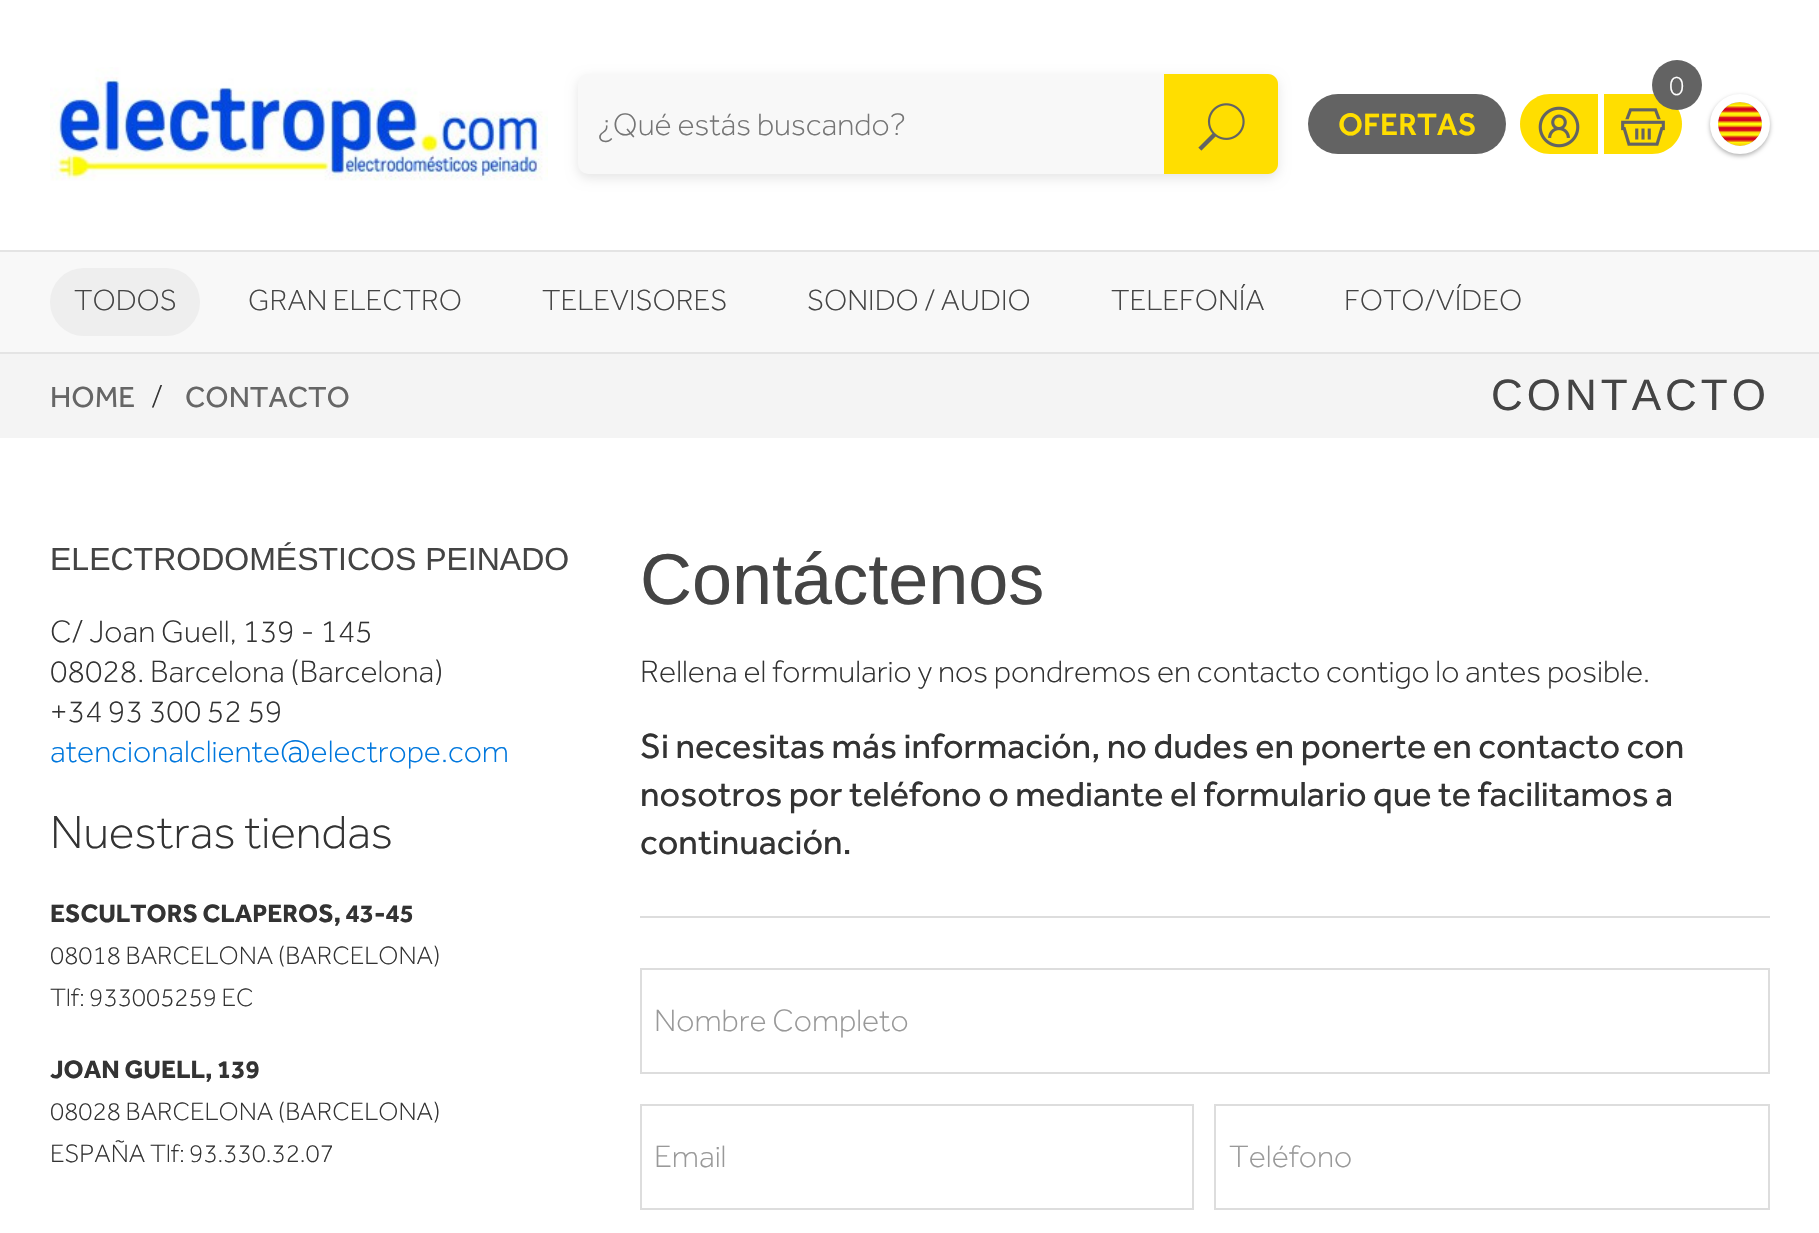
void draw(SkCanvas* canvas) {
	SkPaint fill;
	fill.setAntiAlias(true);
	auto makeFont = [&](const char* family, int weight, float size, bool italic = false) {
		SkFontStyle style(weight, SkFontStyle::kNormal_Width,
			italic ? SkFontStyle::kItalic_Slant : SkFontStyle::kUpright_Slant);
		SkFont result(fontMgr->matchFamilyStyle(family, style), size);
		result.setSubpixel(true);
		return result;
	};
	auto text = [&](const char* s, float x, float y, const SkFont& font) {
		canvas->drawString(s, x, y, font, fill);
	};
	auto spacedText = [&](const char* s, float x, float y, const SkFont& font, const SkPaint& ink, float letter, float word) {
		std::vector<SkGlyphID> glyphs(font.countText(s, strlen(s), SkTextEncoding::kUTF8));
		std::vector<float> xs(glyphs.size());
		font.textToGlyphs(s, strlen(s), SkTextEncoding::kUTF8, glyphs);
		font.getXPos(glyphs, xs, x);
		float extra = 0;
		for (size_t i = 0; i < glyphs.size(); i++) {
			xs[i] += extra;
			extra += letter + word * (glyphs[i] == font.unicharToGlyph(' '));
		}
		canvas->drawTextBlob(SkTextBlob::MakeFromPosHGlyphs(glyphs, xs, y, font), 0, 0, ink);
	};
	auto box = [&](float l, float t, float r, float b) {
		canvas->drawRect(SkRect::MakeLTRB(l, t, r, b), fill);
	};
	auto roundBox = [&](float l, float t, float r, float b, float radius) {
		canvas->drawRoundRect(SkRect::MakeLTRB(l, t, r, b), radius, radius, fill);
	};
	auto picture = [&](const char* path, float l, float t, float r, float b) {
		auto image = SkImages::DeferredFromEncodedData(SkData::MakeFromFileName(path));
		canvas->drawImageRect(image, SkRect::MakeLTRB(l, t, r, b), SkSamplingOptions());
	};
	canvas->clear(0xFFFFFFFF);
	picture("image0.png", 50, 67, 548, 181);
	fill.setColor(0x1A000000);
	fill.setMaskFilter(SkMaskFilter::MakeBlur(kNormal_SkBlurStyle, 6));
	canvas->drawRoundRect(SkRect::MakeLTRB(578, 78, 1278, 178), 10, 10, fill);
	fill.setMaskFilter(nullptr);
	fill.setColor(0xFFF8F8F8);
	roundBox(578, 74, 1278, 174, 10);
	fill.setColor(0xFFFFDE00);
	canvas->drawPath(SkPathBuilder().moveTo(1164, 74).lineTo(1268, 74).cubicTo(1273.5f, 74, 1278, 78.5f, 1278, 84).lineTo(1278, 164).cubicTo(1278, 169.5f, 1273.5f, 174, 1268, 174).lineTo(1164, 174).close().detach(), fill);
	picture("image1.png", 1198, 103, 1245, 151);
	canvas->drawPath(SkPathBuilder().moveTo(1604, 94).lineTo(1652, 94).cubicTo(1668.5f, 94, 1682, 107.5f, 1682, 124).cubicTo(1682, 140.5f, 1668.5f, 154, 1652, 154).lineTo(1604, 154).close().detach(), fill);
	picture("image2.png", 1621, 108, 1665, 146);
	fill.setColor(0xFF636363);
	canvas->drawCircle(1677, 85, 25, fill);
	fill.setColor(0xFFFFDE00);
	canvas->drawPath(SkPathBuilder().moveTo(1550, 94).lineTo(1598, 94).lineTo(1598, 154).lineTo(1550, 154).cubicTo(1533.5f, 154, 1520, 140.5f, 1520, 124).cubicTo(1520, 107.5f, 1533.5f, 94, 1550, 94).close().detach(), fill);
	picture("image3.png", 1538, 106, 1580, 148);
	fill.setColor(0xFF636363);
	roundBox(1308, 94, 1506, 154, 30);
	fill.setColor(0x4D000000);
	fill.setMaskFilter(SkMaskFilter::MakeBlur(kNormal_SkBlurStyle, 2));
	canvas->drawRoundRect(SkRect::MakeLTRB(1710, 96, 1770, 156), 30, 30, fill);
	fill.setMaskFilter(nullptr);
	picture("image4.png", 1718, 102, 1762, 146);
	fill.setStyle(SkPaint::kStroke_Style);
	fill.setStrokeWidth(8);
	fill.setColor(0xFFFFFFFF);
	canvas->drawCircle(1740, 124, 26, fill);
	fill.setStyle(SkPaint::kFill_Style);
	fill.setColor(0xFFF8F8F8);
	box(0, 252, 1819, 352);
	fill.setColor(0xFFE4E4E4);
	box(0, 250, 1819, 252);
	box(0, 352, 1819, 354);
	fill.setColor(0xFFEEEEEE);
	roundBox(50, 268, 200, 336, 34);
	fill.setColor(0xFFF4F4F4);
	box(0, 354, 1819, 438);
	fill.setColor(0xFFDDDDDD);
	box(640, 916, 1770, 918);
	fill.setStyle(SkPaint::kStroke_Style);
	fill.setStrokeWidth(2);
	canvas->drawRect(SkRect::MakeLTRB(641, 969, 1769, 1073), fill);
	canvas->drawRect(SkRect::MakeLTRB(641, 1105, 1193, 1209), fill);
	canvas->drawRect(SkRect::MakeLTRB(1215, 1105, 1769, 1209), fill);
	auto font1 = makeFont("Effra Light", 300, 32);
	fill.setStyle(SkPaint::kFill_Style);
	fill.setColor(0xFF757575);
	text("¿Qué estás buscando?", 597, 135, font1);
	auto font2 = makeFont("Effra Light", 300, 28);
	fill.setColor(0xFFFFFFFF);
	text("0", 1669, 95, font2);
	auto font3 = makeFont("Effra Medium", 500, 32);
	fill.setColor(0xFFFFDE00);
	text("OFERTAS", 1338, 135, font3);
	auto font4 = makeFont("Effra Light", 300, 30);
	fill.setColor(0xFF444444);
	text("TODOS", 74, 310, font4);
	text("GRAN ELECTRO", 248, 310, font4);
	text("TELEVISORES", 542, 310, font4);
	text("SONIDO / AUDIO", 807, 310, font4);
	text("TELEFONÍA", 1111, 310, font4);
	text("FOTO/VÍDEO", 1344, 310, font4);
	auto font5 = makeFont("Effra", 400, 30);
	fill.setColor(0xFF666666);
	text("HOME", 50, 407, font5);
	fill.setColor(0xFF333333);
	text("/", 151, 407, font1);
	fill.setColor(0xFF666666);
	text("CONTACTO", 185, 407, font5);
	auto font6 = makeFont("Liberation Sans", 400, 44);
	fill.setColor(0xFF444444);
	spacedText("CONTACTO", 1491, 410, font6, fill, 4, 0);
	auto font7 = makeFont("Liberation Sans", 400, 32);
	text("ELECTRODOMÉSTICOS PEINADO", 50, 570, font7);
	fill.setColor(0xFF333333);
	text("C/ Joan Guell, 139 - 145", 50, 642, font1);
	text("08028. Barcelona (Barcelona)", 50, 682, font1);
	text("+34 93 300 52 59", 50, 722, font1);
	fill.setColor(0xFF0077DD);
	text("atencionalcliente@electrope.com", 50, 762, font1);
	auto font8 = makeFont("Effra Light", 300, 48);
	fill.setColor(0xFF333333);
	text("Nuestras tiendas", 50, 848, font8);
	auto font9 = makeFont("Effra", 700, 26);
	text("ESCULTORS CLAPEROS, 43-45", 50, 922, font9);
	auto font10 = makeFont("Effra Light", 300, 26);
	text("08018 BARCELONA (BARCELONA)", 50, 964, font10);
	text("Tlf: 933005259 EC", 50, 1006, font10);
	text("JOAN GUELL, 139", 50, 1078, font9);
	text("08028 BARCELONA (BARCELONA)", 50, 1120, font10);
	text("ESPAÑA Tlf: 93.330.32.07", 50, 1162, font10);
	auto font11 = makeFont("Liberation Sans", 400, 72);
	fill.setColor(0xFF444444);
	text("Contáctenos", 640, 604, font11);
	fill.setColor(0xFF333333);
	text("Rellena el formulario y nos pondremos en contacto contigo lo antes posible.", 640, 682, font1);
	auto font12 = makeFont("Effra", 400, 36);
	text("Si necesitas más información, no dudes en ponerte en contacto con", 640, 758, font12);
	text("nosotros por teléfono o mediante el formulario que te facilitamos a", 640, 806, font12);
	text("continuación.", 640, 854, font12);
	fill.setColor(0xFF999999);
	text("Nombre Completo", 654, 1031, font1);
	text("Email", 654, 1167, font1);
	text("Teléfono", 1229, 1167, font1);
}
